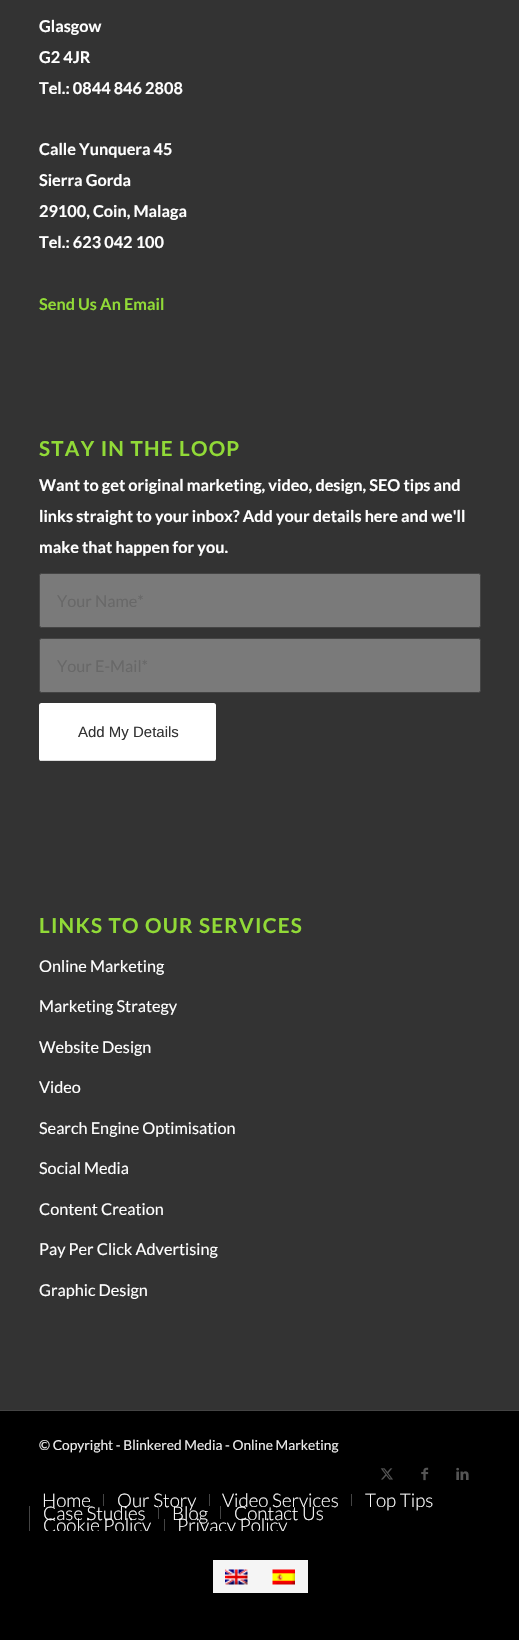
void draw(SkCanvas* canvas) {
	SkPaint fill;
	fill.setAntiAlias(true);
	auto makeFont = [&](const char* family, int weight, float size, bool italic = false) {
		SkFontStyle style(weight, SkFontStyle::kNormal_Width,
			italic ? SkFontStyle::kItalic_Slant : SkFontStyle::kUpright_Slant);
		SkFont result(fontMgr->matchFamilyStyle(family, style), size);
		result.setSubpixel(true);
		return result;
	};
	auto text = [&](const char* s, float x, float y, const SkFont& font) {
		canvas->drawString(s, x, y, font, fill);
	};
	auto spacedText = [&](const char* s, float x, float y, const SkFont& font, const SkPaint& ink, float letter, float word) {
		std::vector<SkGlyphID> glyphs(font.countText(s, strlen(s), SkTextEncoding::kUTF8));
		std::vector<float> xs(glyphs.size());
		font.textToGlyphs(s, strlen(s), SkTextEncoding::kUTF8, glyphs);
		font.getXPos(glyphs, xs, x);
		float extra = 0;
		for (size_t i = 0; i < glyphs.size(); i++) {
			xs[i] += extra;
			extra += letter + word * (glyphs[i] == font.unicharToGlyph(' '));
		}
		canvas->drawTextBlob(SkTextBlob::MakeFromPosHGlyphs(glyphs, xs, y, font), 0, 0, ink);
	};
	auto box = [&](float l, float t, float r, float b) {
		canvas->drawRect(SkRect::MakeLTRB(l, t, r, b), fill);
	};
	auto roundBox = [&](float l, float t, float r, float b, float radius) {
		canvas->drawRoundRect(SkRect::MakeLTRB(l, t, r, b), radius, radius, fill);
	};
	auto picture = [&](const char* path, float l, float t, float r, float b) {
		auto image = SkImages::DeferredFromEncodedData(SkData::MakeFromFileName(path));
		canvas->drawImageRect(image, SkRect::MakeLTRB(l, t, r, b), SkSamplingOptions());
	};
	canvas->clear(0xFF000000);
	fill.setColor(0xFF333333);
	box(0, 0, 519, 1410);
	fill.setColor(0xFF7A7A7A);
	canvas->drawRoundRect(SkRect::MakeLTRB(39.5f, 573.5f, 480.5f, 627.5f), 2, 2, fill);
	fill.setStyle(SkPaint::kStroke_Style);
	fill.setStrokeWidth(1);
	fill.setColor(0xFF444444);
	canvas->drawRoundRect(SkRect::MakeLTRB(39.5f, 573.5f, 480.5f, 627.5f), 2, 2, fill);
	fill.setStyle(SkPaint::kFill_Style);
	fill.setColor(0xFF7A7A7A);
	canvas->drawRoundRect(SkRect::MakeLTRB(39.5f, 638.5f, 480.5f, 692.5f), 2, 2, fill);
	fill.setStyle(SkPaint::kStroke_Style);
	fill.setColor(0xFF444444);
	canvas->drawRoundRect(SkRect::MakeLTRB(39.5f, 638.5f, 480.5f, 692.5f), 2, 2, fill);
	fill.setStyle(SkPaint::kFill_Style);
	fill.setColor(0xFFFFFFFF);
	roundBox(39, 703, 216, 761, 2.5f);
	fill.setColor(0xFFDDDDDD);
	box(40, 760, 215, 761);
	fill.setColor(0xFF444444);
	box(0, 1410, 519, 1411);
	picture("image0.png", 380, 1468, 393, 1480);
	picture("image1.png", 421, 1467, 429, 1481);
	picture("image2.png", 456, 1467, 469, 1480);
	box(103, 1494, 104, 1506);
	box(209, 1494, 210, 1506);
	box(351, 1494, 352, 1506);
	box(29, 1506, 30, 1531);
	box(220, 1506, 221, 1519);
	box(164, 1519, 165, 1531);
	fill.setColor(0xFFF5F5F5);
	box(213, 1560, 308, 1593);
	picture("image3.png", 225, 1569, 248, 1585);
	picture("image4.png", 272, 1569, 295, 1585);
	auto font1 = makeFont("Lato", 700, 16.25f);
	fill.setColor(0xFFFFFFFF);
	text("Glasgow", 39, 32, font1);
	text("G2 4JR", 39, 63, font1);
	text("Tel.: 0844 846 2808", 39, 94, font1);
	text("Calle Yunquera 45", 39, 155, font1);
	text("Sierra Gorda", 39, 186, font1);
	text("29100, Coin, Malaga", 39, 217, font1);
	text("Tel.: 623 042 100", 39, 248, font1);
	fill.setColor(0xFF91DA37);
	text("Send Us An Email", 39, 310, font1);
	auto font2 = makeFont("Lato", 700, 20.6f);
	spacedText("STAY IN THE LOOP", 39, 456, font2, fill, 1.25f, 0);
	fill.setColor(0xFFFFFFFF);
	text("Want to get original marketing, video, design, SEO tips and", 39, 491, font1);
	text("links straight to your inbox? Add your details here and we'll", 39, 522, font1);
	text("make that happen for you.", 39, 553, font1);
	auto font3 = makeFont("Lato", 400, 16.25f);
	fill.setColor(0xFF686868);
	text("Your Name*", 57, 607, font3);
	text("Your E-Mail*", 57, 672, font3);
	auto font4 = makeFont("Liberation Sans", 400, 15);
	fill.setColor(0xFF333333);
	text("Add My Details", 78, 737, font4);
	fill.setColor(0xFF91DA37);
	spacedText("LINKS TO OUR SERVICES", 39, 933, font2, fill, 1.25f, 0);
	fill.setColor(0xFFFFFFFF);
	text("Online Marketing", 39, 972, font3);
	text("Marketing Strategy", 39, 1012, font3);
	text("Website Design", 39, 1053, font3);
	text("Video", 39, 1093, font3);
	text("Search Engine Optimisation", 39, 1134, font3);
	text("Social Media", 39, 1174, font3);
	text("Content Creation", 39, 1215, font3);
	text("Pay Per Click Advertising", 39, 1255, font3);
	text("Graphic Design", 39, 1296, font3);
	auto font5 = makeFont("Lato", 400, 13.75f);
	fill.setColor(0xFFEEEEEE);
	text("© Copyright - Blinkered Media - Online Marketing", 39, 1450, font5);
	auto font6 = makeFont("Lato", 300, 18.75f);
	fill.setColor(0xFFFFFFFF);
	text("Home", 42, 1507, font6);
	text("Our Story", 117, 1507, font6);
	text("Video Services", 222, 1507, font6);
	text("Top Tips", 365, 1507, font6);
	text("Case Studies", 43, 1520, font6);
	fill.setColor(0xFF444444);
	box(158, 1506, 159, 1519);
	fill.setColor(0xFFFFFFFF);
	text("Blog", 172, 1520, font6);
	text("Contact Us", 234, 1520, font6);
	canvas->save();
	canvas->clipRect(SkRect::MakeLTRB(20, 1486, 463, 1531));
	text("Cookie Policy", 43, 1532, font6);
	text("Privacy Policy", 177, 1532, font6);
	canvas->restore();
}
